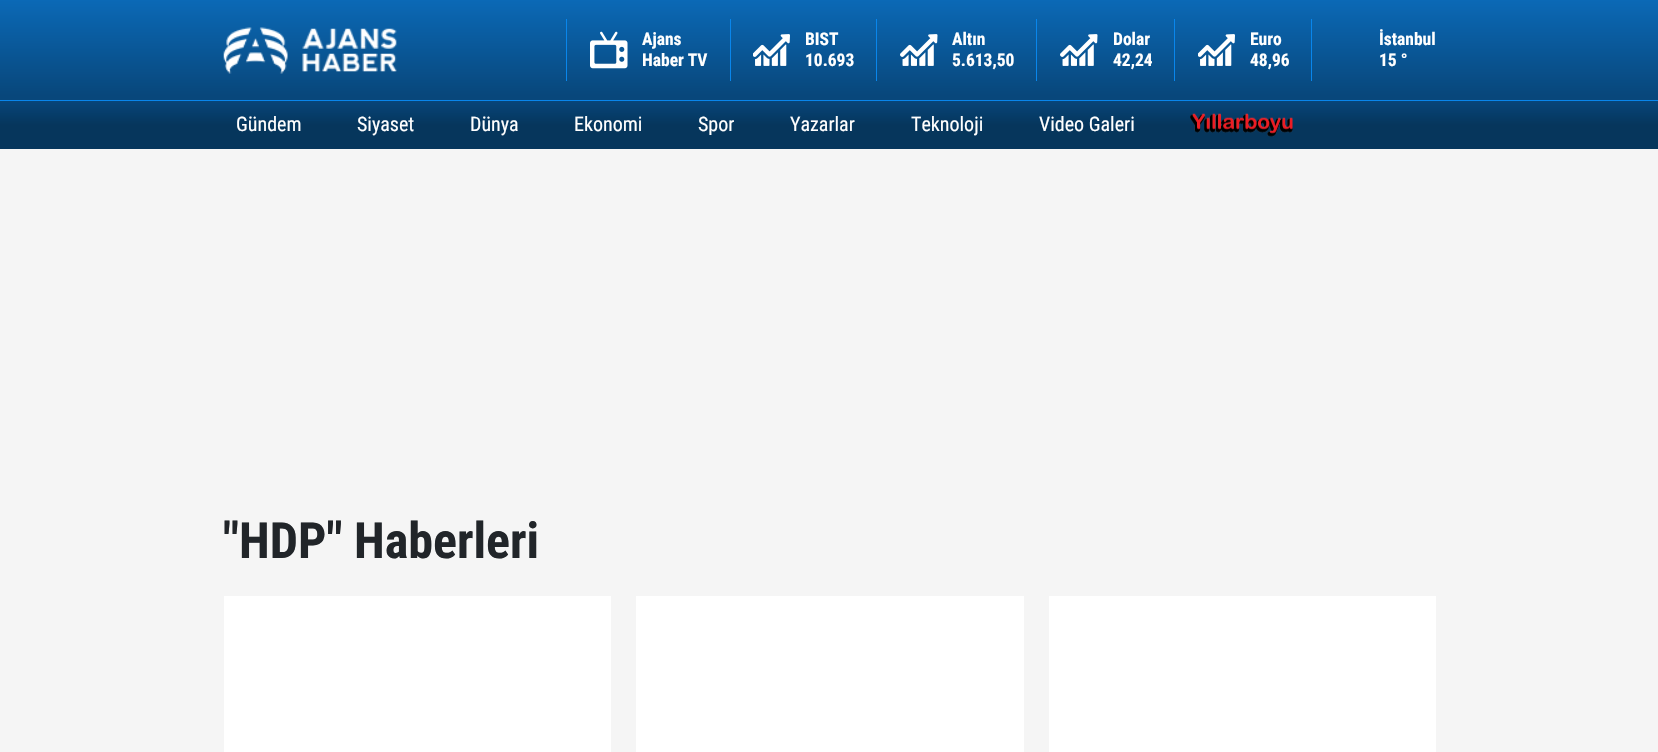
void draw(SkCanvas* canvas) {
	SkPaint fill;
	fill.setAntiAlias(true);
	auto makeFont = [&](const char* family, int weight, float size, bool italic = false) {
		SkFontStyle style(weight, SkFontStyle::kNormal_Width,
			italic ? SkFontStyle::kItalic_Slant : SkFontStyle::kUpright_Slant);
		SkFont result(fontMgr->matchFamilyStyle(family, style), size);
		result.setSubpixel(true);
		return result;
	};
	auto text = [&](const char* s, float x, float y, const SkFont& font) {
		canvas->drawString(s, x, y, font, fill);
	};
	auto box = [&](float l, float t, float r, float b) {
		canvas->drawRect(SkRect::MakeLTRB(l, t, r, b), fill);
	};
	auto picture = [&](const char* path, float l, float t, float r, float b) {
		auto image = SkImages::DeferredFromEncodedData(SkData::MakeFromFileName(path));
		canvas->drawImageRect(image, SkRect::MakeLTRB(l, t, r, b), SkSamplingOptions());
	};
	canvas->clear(0xFFF5F5F5);
	{
		const SkColor colors[] = {0xFF08477B, 0xFF0B69B6};
		const float stops[] = {0.36f, 1};
		const SkPoint ends[] = {{829, 149}, {829, 0}};
		fill.setShader(SkGradientShader::MakeLinear(ends, colors, stops, 2, SkTileMode::kClamp));
		fill.setAlpha(255);
	}
	box(0, 0, 1658, 100);
	picture("image0.png", 223, 27, 397, 74);
	fill.setShader(nullptr);
	fill.setColor(0xFF0986EC);
	box(566, 19, 567, 81);
	picture("image1.png", 590, 31, 628, 69);
	box(730, 19, 731, 81);
	picture("image2.png", 753, 34, 790, 66);
	box(876, 19, 877, 81);
	picture("image3.png", 900, 34, 938, 66);
	box(1036, 19, 1037, 81);
	picture("image3.png", 1060, 34, 1098, 66);
	box(1174, 19, 1175, 81);
	picture("image2.png", 1198, 34, 1235, 66);
	box(1311, 19, 1312, 81);
	{
		const SkColor colors[] = {0xFF06365C, 0xFF07457A};
		const float stops[] = {0.5f, 1};
		const SkPoint ends[] = {{829, 149}, {829, 101}};
		fill.setShader(SkGradientShader::MakeLinear(ends, colors, stops, 2, SkTileMode::kClamp));
		fill.setAlpha(255);
	}
	box(0, 101, 1658, 149);
	fill.setShader(nullptr);
	fill.setColor(0xFF0986EC);
	box(0, 100, 1658, 101);
	picture("image4.png", 1190, 113, 1293, 137);
	fill.setColor(0xFFFFFFFF);
	box(224, 596, 611, 752);
	box(636, 596, 1024, 752);
	box(1049, 596, 1436, 752);
	auto font1 = makeFont("Roboto Condensed", 700, 17.5f);
	text("Ajans", 642, 45, font1);
	text("Haber TV", 642, 66, font1);
	text("BIST", 805, 45, font1);
	text("10.693", 805, 66, font1);
	text("Altın", 952, 45, font1);
	text("5.613,50", 952, 66, font1);
	text("Dolar", 1113, 45, font1);
	text("42,24", 1113, 66, font1);
	text("Euro", 1250, 45, font1);
	text("48,96", 1250, 66, font1);
	text("İstanbul", 1379, 45, font1);
	text("15 °", 1379, 66, font1);
	auto font2 = makeFont("Roboto Condensed", 400, 20);
	text("Gündem", 236, 131, font2);
	text("Siyaset", 357, 131, font2);
	text("Dünya", 470, 131, font2);
	text("Ekonomi", 574, 131, font2);
	text("Spor", 698, 131, font2);
	text("Yazarlar", 790, 131, font2);
	text("Teknoloji", 911, 131, font2);
	text("Video Galeri", 1039, 131, font2);
	auto font3 = makeFont("Roboto Condensed", 700, 50);
	fill.setColor(0xFF212529);
	text("\"HDP\" Haberleri", 223, 558, font3);
}
